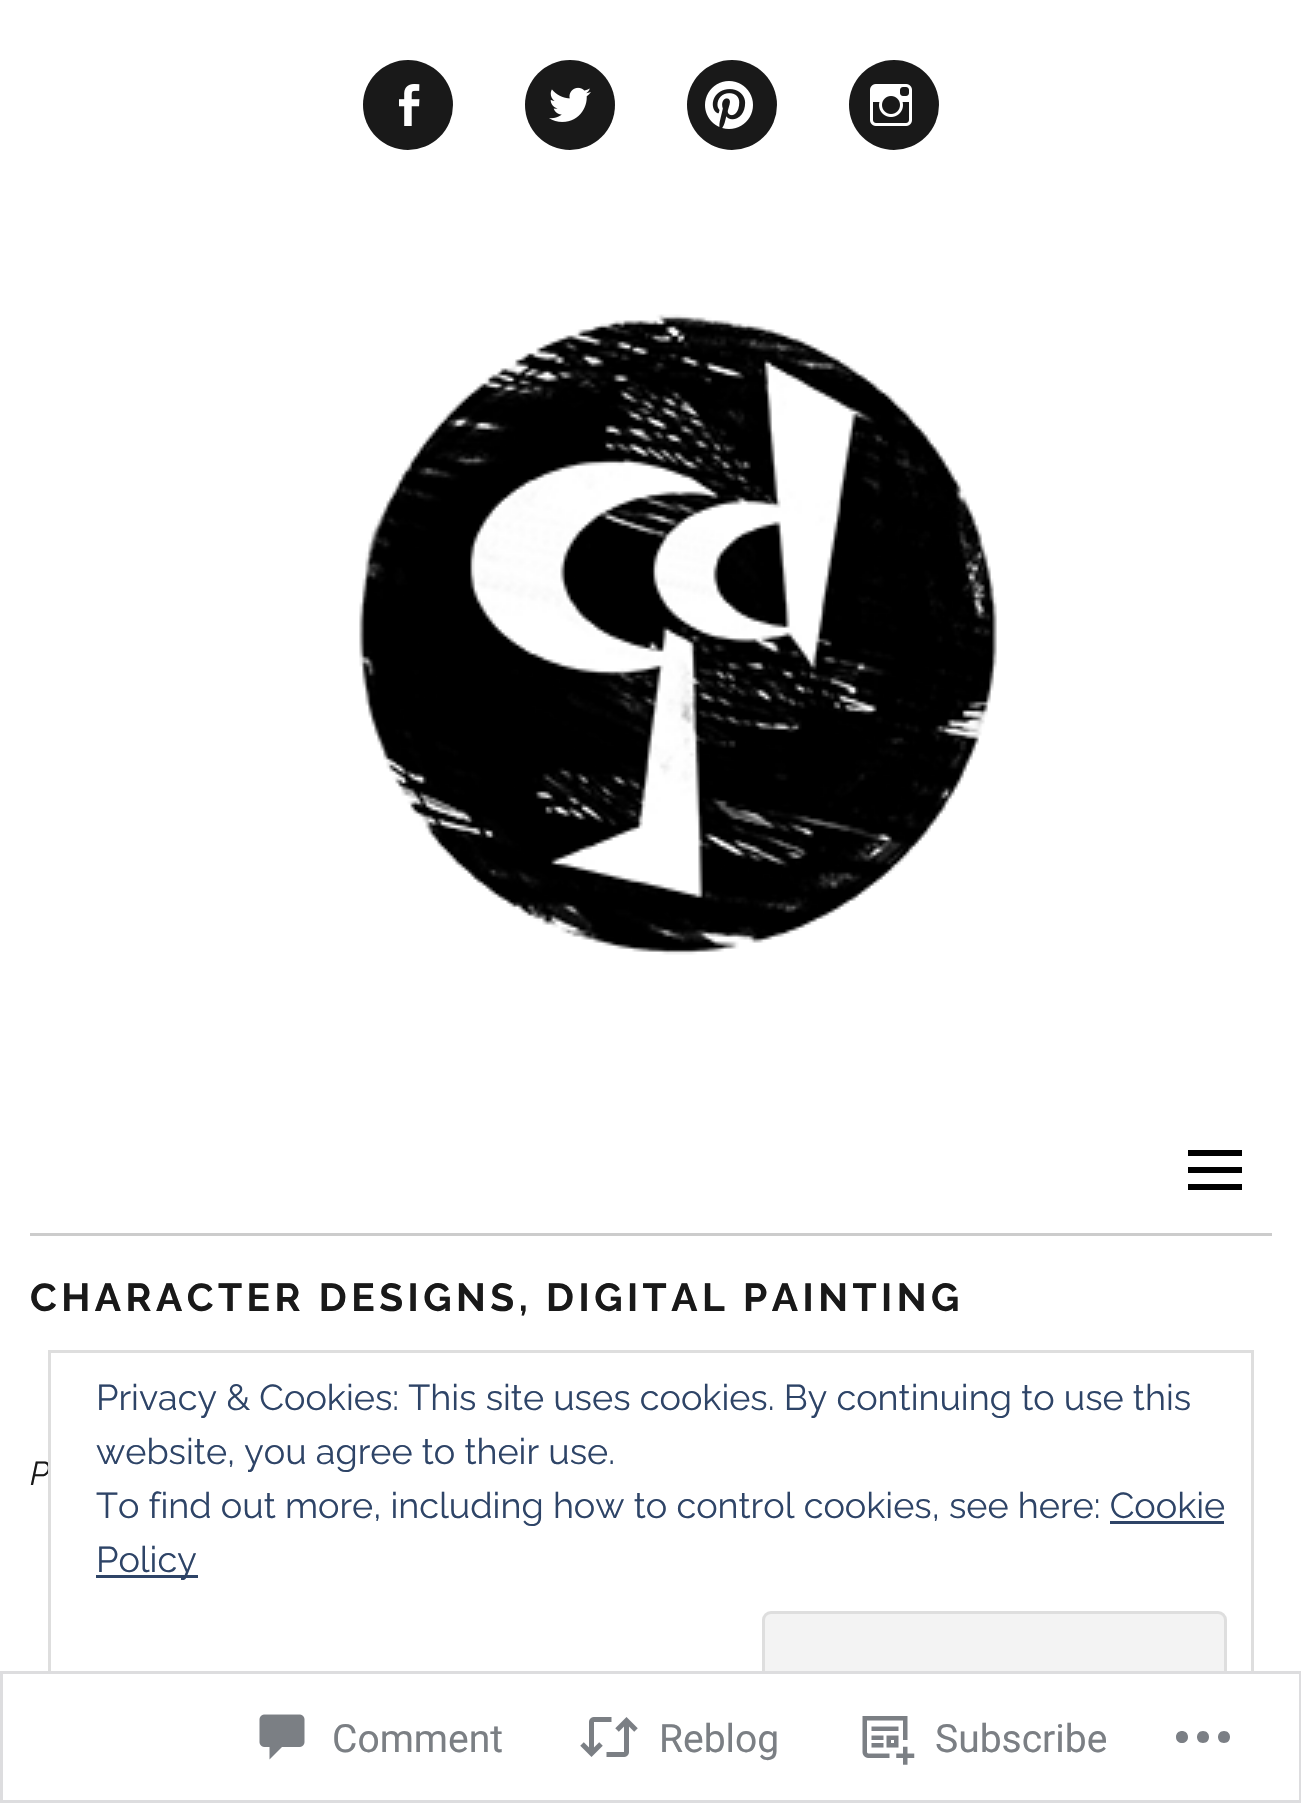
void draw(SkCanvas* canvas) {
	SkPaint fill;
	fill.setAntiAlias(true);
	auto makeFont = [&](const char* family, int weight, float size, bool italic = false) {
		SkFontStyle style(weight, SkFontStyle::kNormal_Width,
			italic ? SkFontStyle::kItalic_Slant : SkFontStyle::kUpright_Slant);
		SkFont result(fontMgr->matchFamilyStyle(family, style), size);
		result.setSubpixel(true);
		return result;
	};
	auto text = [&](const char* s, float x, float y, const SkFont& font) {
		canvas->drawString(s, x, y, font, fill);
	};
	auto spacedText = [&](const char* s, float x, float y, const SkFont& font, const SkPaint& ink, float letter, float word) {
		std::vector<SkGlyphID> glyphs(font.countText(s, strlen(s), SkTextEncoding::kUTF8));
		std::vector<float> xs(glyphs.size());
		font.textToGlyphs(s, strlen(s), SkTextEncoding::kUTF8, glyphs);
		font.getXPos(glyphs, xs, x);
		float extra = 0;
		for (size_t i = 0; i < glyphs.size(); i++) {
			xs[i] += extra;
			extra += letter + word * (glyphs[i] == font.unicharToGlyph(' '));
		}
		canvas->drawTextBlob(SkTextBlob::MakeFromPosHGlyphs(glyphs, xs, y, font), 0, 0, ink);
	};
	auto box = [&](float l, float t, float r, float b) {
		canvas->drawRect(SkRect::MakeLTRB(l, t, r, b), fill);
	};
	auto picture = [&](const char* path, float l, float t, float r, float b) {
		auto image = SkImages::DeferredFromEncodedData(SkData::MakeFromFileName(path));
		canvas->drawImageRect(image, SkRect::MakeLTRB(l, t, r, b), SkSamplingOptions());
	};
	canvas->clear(0xFFFFFFFF);
	fill.setColor(0xFF191919);
	canvas->drawCircle(408, 105, 45, fill);
	picture("image0.png", 399, 84, 420, 126);
	canvas->drawCircle(570, 105, 45, fill);
	picture("image1.png", 549, 87, 591, 122);
	canvas->drawCircle(732, 105, 45, fill);
	picture("image2.png", 705, 81, 753, 129);
	canvas->drawCircle(894, 105, 45, fill);
	picture("image3.png", 870, 84, 912, 126);
	picture("image4.png", 359, 314, 997, 955);
	fill.setColor(0xFF000000);
	canvas->drawPath(SkPathBuilder().moveTo(1188, 1190).lineTo(1188, 1184).lineTo(1242, 1184).lineTo(1242, 1190).close().moveTo(1188, 1150).lineTo(1242, 1150).lineTo(1242, 1156).lineTo(1188, 1156).close().moveTo(1188, 1173).lineTo(1188, 1167).lineTo(1242, 1167).lineTo(1242, 1173).close().detach(), fill);
	fill.setColor(0xFFCCCCCC);
	box(30, 1233, 1272, 1236);
	auto font1 = makeFont("Raleway", 700, 39);
	fill.setColor(0xFF191919);
	spacedText("CHARACTER DESIGNS, DIGITAL PAINTING", 30, 1311, font1, fill, 4.5f, 0);
	auto font2 = makeFont("Raleway", 400, 33, true);
	text("P", 30, 1485, font2);
	fill.setStyle(SkPaint::kStroke_Style);
	fill.setStrokeWidth(3);
	fill.setColor(0xFFDEDEDE);
	canvas->drawRect(SkRect::MakeLTRB(49.5f, 1351.5f, 1252.5f, 1753.5f), fill);
	auto font3 = makeFont("Raleway", 400, 36);
	fill.setStyle(SkPaint::kFill_Style);
	fill.setColor(0xFF2E4467);
	text("Privacy & Cookies: This site uses cookies. By continuing to use this", 96, 1410, font3);
	text("website, you agree to their use.", 96, 1464, font3);
	text("To find out more, including how to control cookies, see here: Cookie", 96, 1518, font3);
	box(1110, 1521, 1224, 1524);
	box(96, 1575, 198, 1578);
	text("Policy", 96, 1572, font3);
	fill.setColor(0xFFF3F3F3);
	canvas->drawRoundRect(SkRect::MakeLTRB(763.5f, 1612.5f, 1225.5f, 1726.5f), 7.5f, 7.5f, fill);
	fill.setStyle(SkPaint::kStroke_Style);
	fill.setColor(0xFFDEDEDE);
	canvas->drawRoundRect(SkRect::MakeLTRB(763.5f, 1612.5f, 1225.5f, 1726.5f), 7.5f, 7.5f, fill);
	fill.setStyle(SkPaint::kFill_Style);
	fill.setColor(0xFAFFFFFF);
	box(48, 1671, 1254, 1755);
	fill.setStyle(SkPaint::kStroke_Style);
	fill.setColor(0xFADCDCDE);
	canvas->drawRect(SkRect::MakeLTRB(1.5f, 1672.5f, 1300.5f, 1801.5f), fill);
	picture("image5.png", 259, 1714, 305, 1760);
	auto font4 = makeFont("Roboto", 400, 39);
	fill.setStyle(SkPaint::kFill_Style);
	fill.setColor(0xFF7B7F84);
	text("Comment", 332, 1752, font4);
	picture("image6.png", 580, 1717, 638, 1757);
	text("Reblog", 659, 1752, font4);
	picture("image7.png", 862, 1716, 915, 1765);
	text("Subscribe", 935, 1752, font4);
	fill.setColor(0xFF7B7F85);
	canvas->drawPath(SkPathBuilder().moveTo(1188, 1737).cubicTo(1188, 1745, 1176, 1745, 1176, 1737).cubicTo(1176, 1729, 1188, 1729, 1188, 1737).close().moveTo(1224, 1731).cubicTo(1216, 1731, 1216, 1743, 1224, 1743).cubicTo(1232, 1743, 1232, 1731, 1224, 1731).close().moveTo(1203, 1731).cubicTo(1195, 1731, 1195, 1743, 1203, 1743).cubicTo(1211, 1743, 1211, 1731, 1203, 1731).close().detach(), fill);
}
